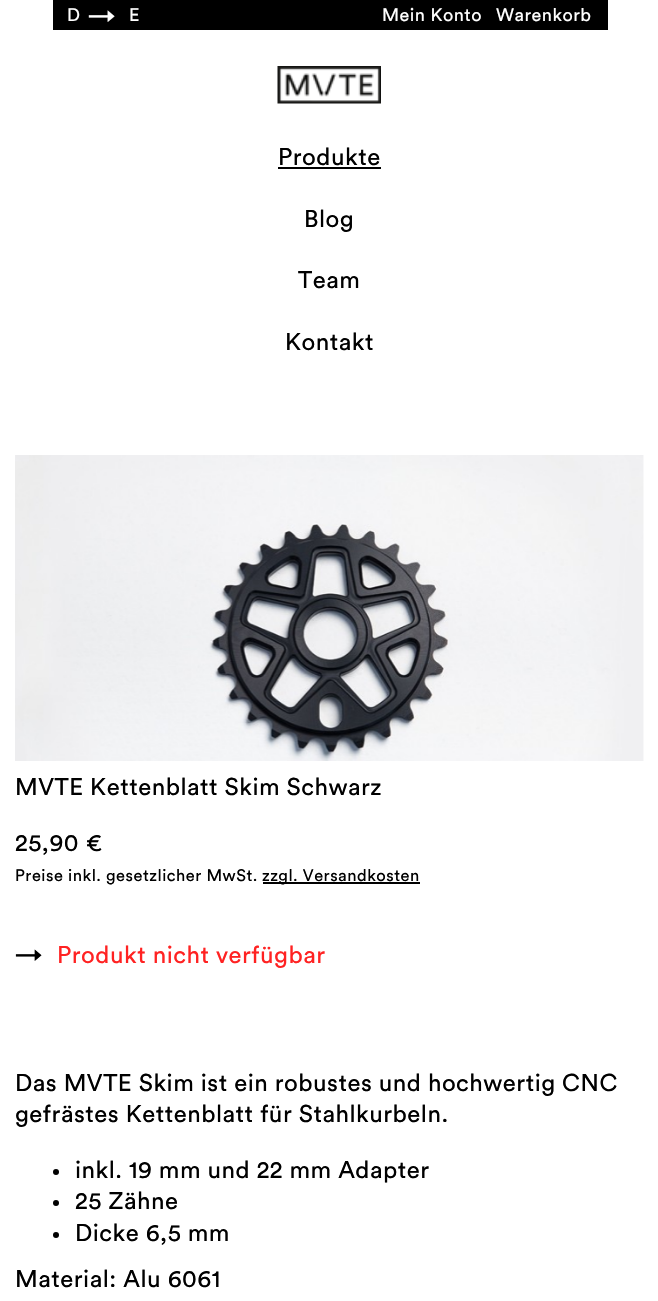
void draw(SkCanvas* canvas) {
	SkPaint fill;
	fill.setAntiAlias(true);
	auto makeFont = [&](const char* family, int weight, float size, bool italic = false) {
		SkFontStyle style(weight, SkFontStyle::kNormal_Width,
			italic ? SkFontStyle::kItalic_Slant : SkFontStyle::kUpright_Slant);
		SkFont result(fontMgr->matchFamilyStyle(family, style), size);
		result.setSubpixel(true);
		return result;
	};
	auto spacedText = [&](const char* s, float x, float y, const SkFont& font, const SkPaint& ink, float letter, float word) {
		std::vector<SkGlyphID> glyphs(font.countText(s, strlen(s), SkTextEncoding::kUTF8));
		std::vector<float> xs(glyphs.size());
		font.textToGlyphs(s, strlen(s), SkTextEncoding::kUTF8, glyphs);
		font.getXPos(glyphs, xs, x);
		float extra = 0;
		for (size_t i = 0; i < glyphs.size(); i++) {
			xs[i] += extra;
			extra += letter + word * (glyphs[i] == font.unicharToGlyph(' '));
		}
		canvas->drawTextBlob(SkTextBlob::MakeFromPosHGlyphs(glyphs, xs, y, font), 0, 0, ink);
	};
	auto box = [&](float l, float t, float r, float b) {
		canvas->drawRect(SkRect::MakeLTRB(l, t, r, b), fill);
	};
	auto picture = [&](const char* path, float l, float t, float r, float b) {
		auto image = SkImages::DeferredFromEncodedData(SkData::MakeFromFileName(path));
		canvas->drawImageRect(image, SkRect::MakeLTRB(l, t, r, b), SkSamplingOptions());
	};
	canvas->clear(0xFFFFFFFF);
	fill.setColor(0xFF000000);
	box(53, 0, 608, 30);
	picture("image0.png", 277, 66, 381, 104);
	box(278, 167, 381, 169);
	picture("image1.png", 15, 455, 644, 761);
	box(263, 882, 420, 884);
	canvas->drawCircle(56, 1172, 3, fill);
	canvas->drawCircle(56, 1203, 3, fill);
	canvas->drawCircle(56, 1235, 3, fill);
	auto font1 = makeFont("Circular", 400, 18);
	fill.setColor(0xFFFFFFFF);
	spacedText("D", 67, 21, font1, fill, 0.5f, 0);
	auto font2 = makeFont("Circular", 400, 27);
	spacedText("→", 88, 24, font2, fill, 0.5f, 0);
	spacedText("E", 129, 21, font1, fill, 0.5f, 0);
	spacedText("Mein Konto", 382, 21, font1, fill, 0.5f, 0);
	spacedText("Warenkorb", 496, 21, font1, fill, 0.5f, 0);
	auto font3 = makeFont("Circular", 400, 24);
	fill.setColor(0xFF000000);
	spacedText("Produkte", 278, 165, font3, fill, 0.5f, 0);
	spacedText("Blog", 304, 227, font3, fill, 0.5f, 0);
	spacedText("Team", 298, 288, font3, fill, 0.5f, 0);
	spacedText("Kontakt", 285, 350, font3, fill, 0.5f, 0);
	spacedText("MVTE Kettenblatt Skim Schwarz", 15, 795, font3, fill, 0.5f, 0);
	spacedText("25,90 €", 15, 851, font3, fill, 0.5f, 0);
	auto font4 = makeFont("Circular", 400, 16.5f);
	spacedText("Preise inkl. gesetzlicher MwSt.", 15, 881, font4, fill, 0.5f, 0);
	spacedText("zzgl. Versandkosten", 262, 881, font4, fill, 0.5f, 0);
	spacedText("→", 15, 963, font2, fill, 0.5f, 0);
	fill.setColor(0xFFFF2222);
	spacedText("Produkt nicht verfügbar", 57, 963, font3, fill, 0.5f, 0);
	fill.setColor(0xFF000000);
	spacedText("Das MVTE Skim ist ein robustes und hochwertig CNC", 15, 1091, font3, fill, 0.5f, 0);
	spacedText("gefrästes Kettenblatt für Stahlkurbeln.", 15, 1122, font3, fill, 0.5f, 0);
	spacedText("inkl. 19 mm und 22 mm Adapter", 75, 1178, font3, fill, 0.5f, 0);
	spacedText("25 Zähne", 75, 1209, font3, fill, 0.5f, 0);
	spacedText("Dicke 6,5 mm", 75, 1241, font3, fill, 0.5f, 0);
	spacedText("Material: Alu 6061", 15, 1287, font3, fill, 0.5f, 0);
}
